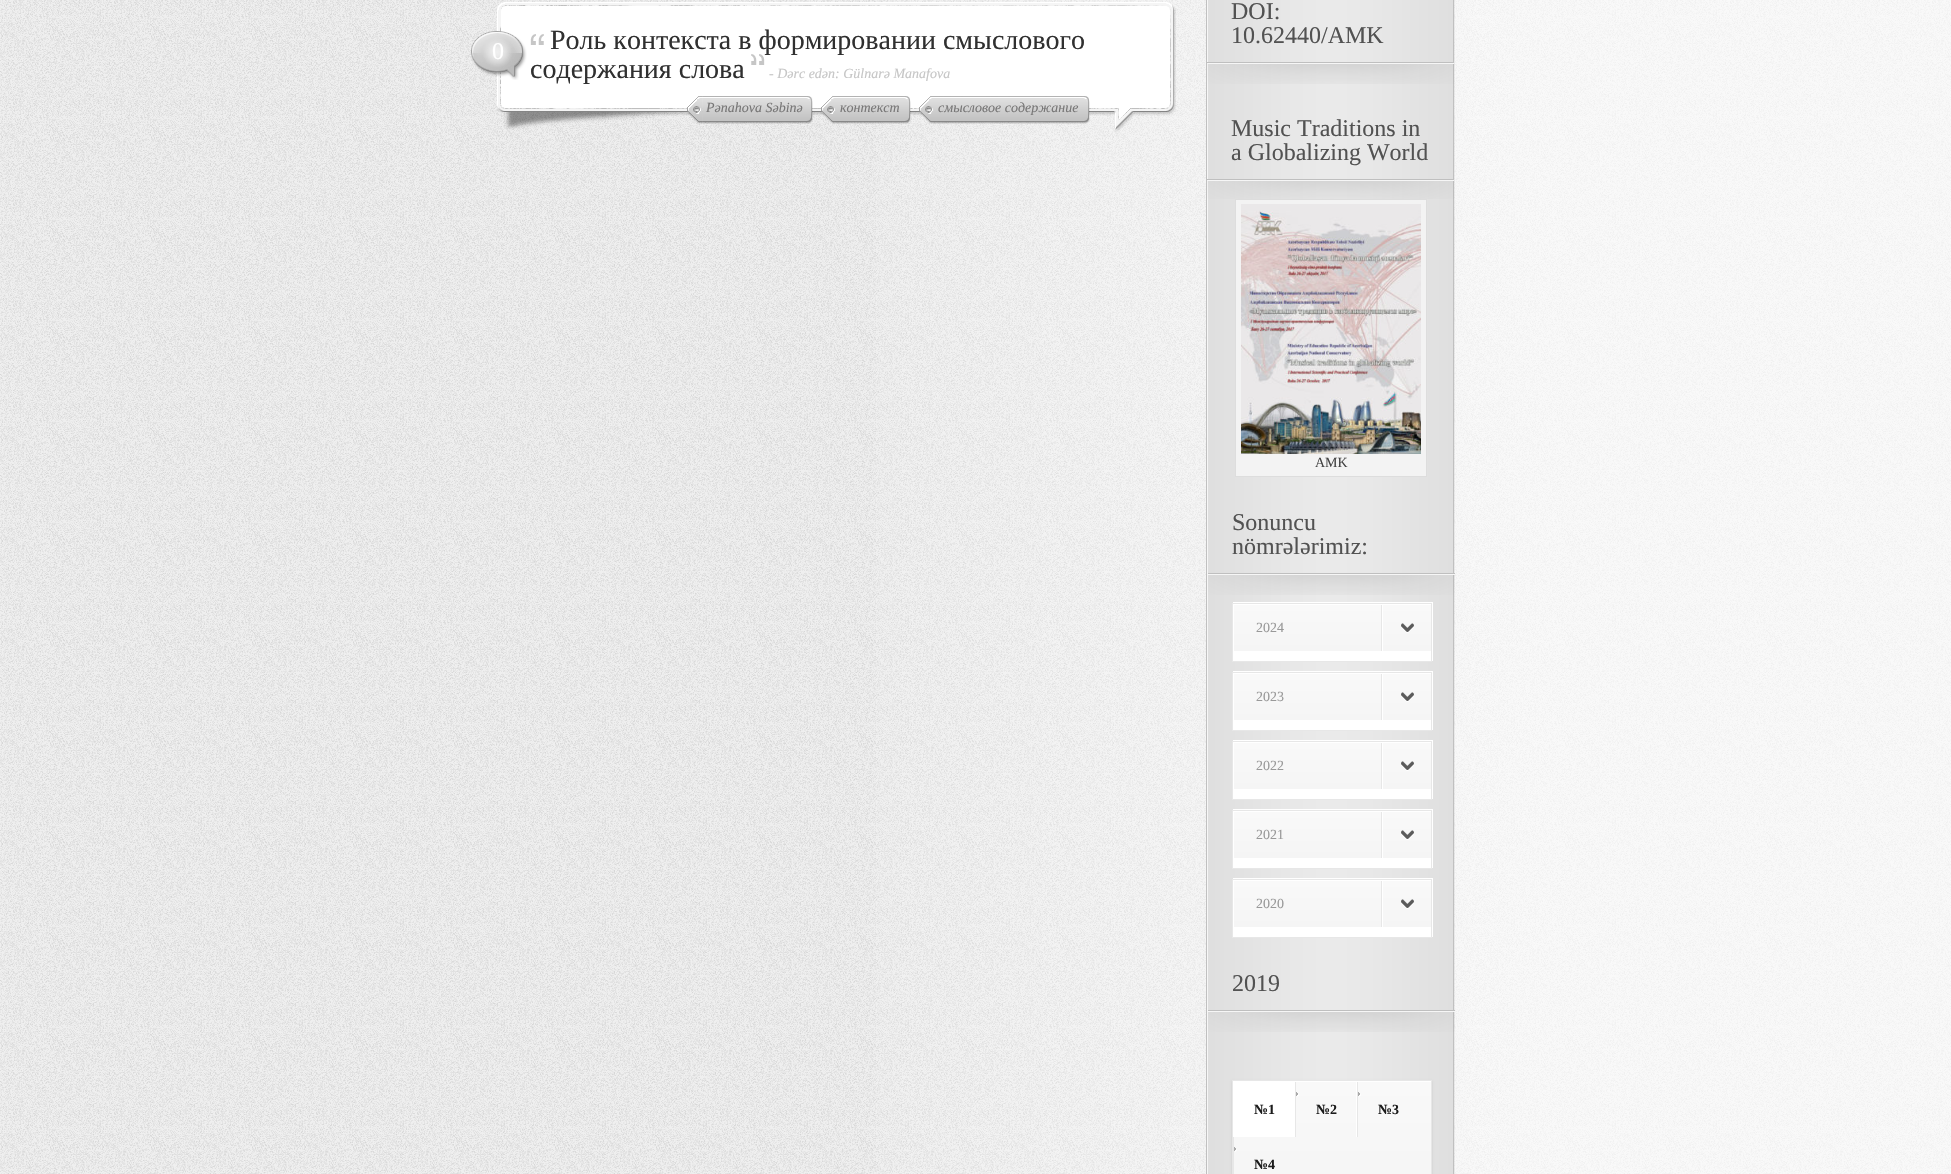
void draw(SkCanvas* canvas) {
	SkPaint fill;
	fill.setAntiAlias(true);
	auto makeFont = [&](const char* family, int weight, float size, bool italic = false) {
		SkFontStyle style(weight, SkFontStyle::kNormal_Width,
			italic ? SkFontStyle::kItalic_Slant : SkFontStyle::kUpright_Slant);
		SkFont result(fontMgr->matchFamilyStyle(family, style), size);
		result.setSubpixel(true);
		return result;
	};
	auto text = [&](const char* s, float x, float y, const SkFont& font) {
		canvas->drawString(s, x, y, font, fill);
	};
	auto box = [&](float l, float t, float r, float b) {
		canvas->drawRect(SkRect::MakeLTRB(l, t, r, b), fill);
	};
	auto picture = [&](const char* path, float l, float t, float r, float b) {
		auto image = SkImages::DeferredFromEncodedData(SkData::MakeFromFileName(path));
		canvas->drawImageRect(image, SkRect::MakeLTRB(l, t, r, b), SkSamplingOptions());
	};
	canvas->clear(0xFFFFFFFF);
	picture("image0.png", 0, 0, 1951, 1174);
	picture("image1.png", 876, 0, 1951, 1174);
	picture("image2.png", 497, 84, 1176, 132);
	picture("image3.png", 497, 2, 1176, 26);
	picture("image4.png", 497, 26, 1176, 84);
	picture("image5.png", 530, 34, 544, 45);
	picture("image6.png", 471, 31, 527, 80);
	picture("image8.png", 687, 96, 703, 124);
	picture("image9.png", 703, 96, 813, 124);
	picture("image10.png", 821, 96, 837, 124);
	picture("image11.png", 837, 96, 911, 124);
	picture("image12.png", 919, 96, 935, 124);
	picture("image13.png", 935, 96, 1090, 124);
	picture("image14.png", 1206, 0, 1455, 1174);
	picture("image15.png", 1207, 62, 1454, 84);
	picture("image16.png", 1207, 179, 1454, 199);
	fill.setColor(0xFFF3F3F3);
	canvas->drawRect(SkRect::MakeLTRB(1235.5f, 199.5f, 1426.5f, 476.5f), fill);
	fill.setStyle(SkPaint::kStroke_Style);
	fill.setStrokeWidth(1);
	fill.setColor(0xFFDDDDDD);
	canvas->drawRect(SkRect::MakeLTRB(1235.5f, 199.5f, 1426.5f, 476.5f), fill);
	picture("image17.png", 1241, 204, 1421, 454);
	picture("image18.png", 1208, 573, 1455, 595);
	fill.setStyle(SkPaint::kFill_Style);
	fill.setColor(0xFFFFFFFF);
	canvas->drawPath(SkPathBuilder().moveTo(1233, 602).lineTo(1233, 603).lineTo(1432, 603).lineTo(1432, 661).lineTo(1433, 661).lineTo(1433, 602).close().detach(), fill);
	box(1233, 651, 1431, 661);
	fill.setStyle(SkPaint::kStroke_Style);
	fill.setColor(0xFFE7E7E7);
	canvas->drawRect(SkRect::MakeLTRB(1232.5f, 603.5f, 1431.5f, 661.5f), fill);
	fill.setStyle(SkPaint::kFill_Style);
	{
		const SkColor colors[] = {0xFFF9F9F9, 0xFFF5F5F5};
		const float stops[] = {0, 1};
		const SkPoint ends[] = {{1333, 605}, {1333, 651}};
		fill.setShader(SkGradientShader::MakeLinear(ends, colors, stops, 2, SkTileMode::kClamp));
		fill.setAlpha(255);
	}
	box(1234, 605, 1431, 651);
	fill.setShader(nullptr);
	fill.setColor(0xFFFFFFFF);
	box(1233, 604, 1431, 605);
	box(1233, 604, 1234, 651);
	fill.setColor(0xFFE7E7E7);
	box(1381, 605, 1382, 651);
	fill.setColor(0xFFFFFFFF);
	box(1382, 605, 1383, 651);
	picture("image19.png", 1401, 623, 1414, 633);
	canvas->drawPath(SkPathBuilder().moveTo(1233, 671).lineTo(1233, 672).lineTo(1432, 672).lineTo(1432, 730).lineTo(1433, 730).lineTo(1433, 671).close().detach(), fill);
	box(1233, 720, 1431, 730);
	fill.setStyle(SkPaint::kStroke_Style);
	fill.setColor(0xFFE7E7E7);
	canvas->drawRect(SkRect::MakeLTRB(1232.5f, 672.5f, 1431.5f, 730.5f), fill);
	fill.setStyle(SkPaint::kFill_Style);
	{
		const SkColor colors[] = {0xFFF9F9F9, 0xFFF5F5F5};
		const float stops[] = {0, 1};
		const SkPoint ends[] = {{1333, 674}, {1333, 720}};
		fill.setShader(SkGradientShader::MakeLinear(ends, colors, stops, 2, SkTileMode::kClamp));
		fill.setAlpha(255);
	}
	box(1234, 674, 1431, 720);
	fill.setShader(nullptr);
	fill.setColor(0xFFFFFFFF);
	box(1233, 673, 1431, 674);
	box(1233, 673, 1234, 720);
	fill.setColor(0xFFE7E7E7);
	box(1381, 674, 1382, 720);
	fill.setColor(0xFFFFFFFF);
	box(1382, 674, 1383, 720);
	picture("image19.png", 1401, 692, 1414, 702);
	canvas->drawPath(SkPathBuilder().moveTo(1233, 740).lineTo(1233, 741).lineTo(1432, 741).lineTo(1432, 799).lineTo(1433, 799).lineTo(1433, 740).close().detach(), fill);
	box(1233, 789, 1431, 799);
	fill.setStyle(SkPaint::kStroke_Style);
	fill.setColor(0xFFE7E7E7);
	canvas->drawRect(SkRect::MakeLTRB(1232.5f, 741.5f, 1431.5f, 799.5f), fill);
	fill.setStyle(SkPaint::kFill_Style);
	{
		const SkColor colors[] = {0xFFF9F9F9, 0xFFF5F5F5};
		const float stops[] = {0, 1};
		const SkPoint ends[] = {{1333, 743}, {1333, 789}};
		fill.setShader(SkGradientShader::MakeLinear(ends, colors, stops, 2, SkTileMode::kClamp));
		fill.setAlpha(255);
	}
	box(1234, 743, 1431, 789);
	fill.setShader(nullptr);
	fill.setColor(0xFFFFFFFF);
	box(1233, 742, 1431, 743);
	box(1233, 742, 1234, 789);
	fill.setColor(0xFFE7E7E7);
	box(1381, 743, 1382, 789);
	fill.setColor(0xFFFFFFFF);
	box(1382, 743, 1383, 789);
	picture("image19.png", 1401, 761, 1414, 771);
	canvas->drawPath(SkPathBuilder().moveTo(1233, 809).lineTo(1233, 810).lineTo(1432, 810).lineTo(1432, 868).lineTo(1433, 868).lineTo(1433, 809).close().detach(), fill);
	box(1233, 858, 1431, 868);
	fill.setStyle(SkPaint::kStroke_Style);
	fill.setColor(0xFFE7E7E7);
	canvas->drawRect(SkRect::MakeLTRB(1232.5f, 810.5f, 1431.5f, 868.5f), fill);
	fill.setStyle(SkPaint::kFill_Style);
	{
		const SkColor colors[] = {0xFFF9F9F9, 0xFFF5F5F5};
		const float stops[] = {0, 1};
		const SkPoint ends[] = {{1333, 812}, {1333, 858}};
		fill.setShader(SkGradientShader::MakeLinear(ends, colors, stops, 2, SkTileMode::kClamp));
		fill.setAlpha(255);
	}
	box(1234, 812, 1431, 858);
	fill.setShader(nullptr);
	fill.setColor(0xFFFFFFFF);
	box(1233, 811, 1431, 812);
	box(1233, 811, 1234, 858);
	fill.setColor(0xFFE7E7E7);
	box(1381, 812, 1382, 858);
	fill.setColor(0xFFFFFFFF);
	box(1382, 812, 1383, 858);
	picture("image19.png", 1401, 830, 1414, 840);
	canvas->drawPath(SkPathBuilder().moveTo(1233, 878).lineTo(1233, 879).lineTo(1432, 879).lineTo(1432, 937).lineTo(1433, 937).lineTo(1433, 878).close().detach(), fill);
	box(1233, 927, 1431, 937);
	fill.setStyle(SkPaint::kStroke_Style);
	fill.setColor(0xFFE7E7E7);
	canvas->drawRect(SkRect::MakeLTRB(1232.5f, 879.5f, 1431.5f, 937.5f), fill);
	fill.setStyle(SkPaint::kFill_Style);
	{
		const SkColor colors[] = {0xFFF9F9F9, 0xFFF5F5F5};
		const float stops[] = {0, 1};
		const SkPoint ends[] = {{1333, 881}, {1333, 927}};
		fill.setShader(SkGradientShader::MakeLinear(ends, colors, stops, 2, SkTileMode::kClamp));
		fill.setAlpha(255);
	}
	box(1234, 881, 1431, 927);
	fill.setShader(nullptr);
	fill.setColor(0xFFFFFFFF);
	box(1233, 880, 1431, 881);
	box(1233, 880, 1234, 927);
	fill.setColor(0xFFE7E7E7);
	box(1381, 881, 1382, 927);
	fill.setColor(0xFFFFFFFF);
	box(1382, 881, 1383, 927);
	picture("image19.png", 1401, 899, 1414, 909);
	picture("image20.png", 1208, 1010, 1455, 1032);
	fill.setColor(0x1A000000);
	fill.setMaskFilter(SkMaskFilter::MakeBlur(kNormal_SkBlurStyle, 1));
	canvas->drawRect(SkRect::MakeLTRB(1232, 1081, 1432, 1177), fill);
	fill.setMaskFilter(nullptr);
	fill.setStyle(SkPaint::kStroke_Style);
	fill.setColor(0xFFE7E7E7);
	canvas->drawRect(SkRect::MakeLTRB(1232.5f, 1080.5f, 1431.5f, 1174.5f), fill);
	fill.setStyle(SkPaint::kFill_Style);
	{
		const SkColor colors[] = {0xFFF9F9F9, 0xFFF5F5F5};
		const float stops[] = {0, 1};
		const SkPoint ends[] = {{1332, 1082}, {1332, 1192}};
		fill.setShader(SkGradientShader::MakeLinear(ends, colors, stops, 2, SkTileMode::kClamp));
		fill.setAlpha(255);
	}
	box(1234, 1082, 1431, 1174);
	fill.setShader(nullptr);
	fill.setColor(0xFFFFFFFF);
	box(1233, 1081, 1431, 1082);
	box(1233, 1082, 1295, 1137);
	picture("image21.png", 1296, 1092, 1299, 1097);
	fill.setColor(0xFFE7E7E7);
	box(1295, 1082, 1296, 1137);
	fill.setColor(0xFFFFFFFF);
	box(1356, 1082, 1357, 1137);
	picture("image21.png", 1358, 1092, 1361, 1097);
	fill.setColor(0xFFE7E7E7);
	box(1357, 1082, 1358, 1137);
	picture("image22.png", 1234, 1147, 1237, 1152);
	box(1233, 1137, 1234, 1174);
	auto font1 = makeFont("Liberation Serif", 400, 28);
	fill.setColor(0xFF303030);
	text("Роль контекста в формировании смыслового", 550, 49, font1);
	auto font2 = makeFont("Liberation Serif", 400, 24);
	fill.setColor(0xFFFFFFFF);
	text("0", 492, 59, font2);
	picture("image7.png", 751, 54, 765, 65);
	fill.setColor(0xFF303030);
	text("содержания слова", 530, 78, font1);
	auto font3 = makeFont("Liberation Serif", 400, 14, true);
	fill.setColor(0xFFC6C6C6);
	text("- Dərc edən: Gülnarə Manafova", 769, 78, font3);
	fill.setColor(0xFF777676);
	text("Pənahova Səbinə", 706, 112, font3);
	text("контекст", 840, 112, font3);
	text("смысловое содержание", 938, 112, font3);
	fill.setColor(0xFF525252);
	text("DOI:", 1231, 19, font2);
	text("10.62440/AMK", 1231, 43, font2);
	text("Music Traditions in", 1231, 136, font2);
	text("a Globalizing World", 1231, 160, font2);
	auto font4 = makeFont("Liberation Serif", 400, 14);
	fill.setColor(0xFF424242);
	text("AMK", 1315, 467, font4);
	fill.setColor(0xFF525252);
	text("Sonuncu", 1232, 530, font2);
	text("nömrələrimiz:", 1232, 554, font2);
	fill.setColor(0xFF999999);
	text("2024", 1256, 632, font4);
	text("2023", 1256, 701, font4);
	text("2022", 1256, 770, font4);
	text("2021", 1256, 839, font4);
	text("2020", 1256, 908, font4);
	fill.setColor(0xFF525252);
	text("2019", 1232, 991, font2);
	auto font5 = makeFont("Liberation Serif", 700, 14);
	fill.setColor(0xFF1C1C1C);
	text("№1", 1254, 1114, font5);
	text("№2", 1316, 1114, font5);
	text("№3", 1378, 1114, font5);
	text("№4", 1254, 1169, font5);
}
